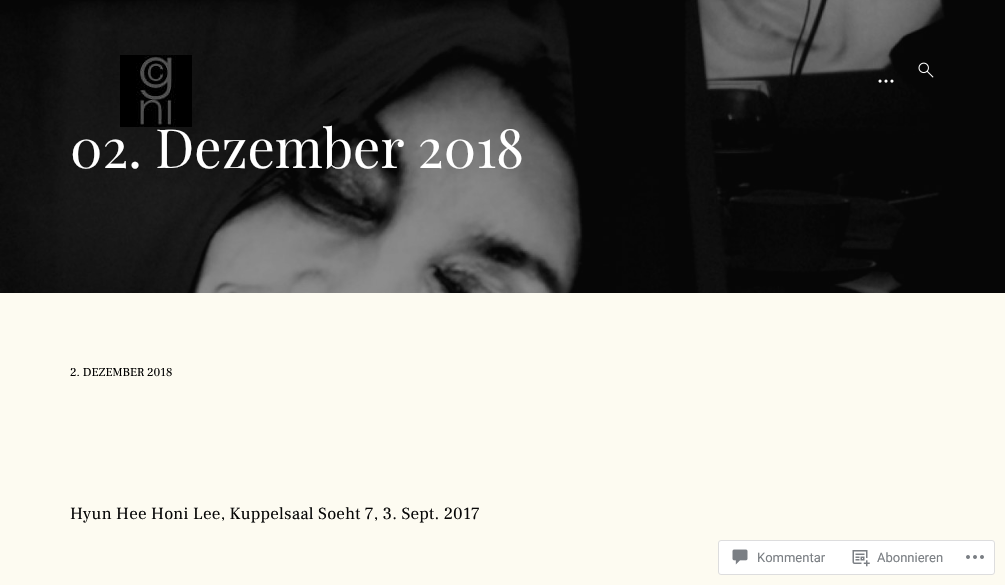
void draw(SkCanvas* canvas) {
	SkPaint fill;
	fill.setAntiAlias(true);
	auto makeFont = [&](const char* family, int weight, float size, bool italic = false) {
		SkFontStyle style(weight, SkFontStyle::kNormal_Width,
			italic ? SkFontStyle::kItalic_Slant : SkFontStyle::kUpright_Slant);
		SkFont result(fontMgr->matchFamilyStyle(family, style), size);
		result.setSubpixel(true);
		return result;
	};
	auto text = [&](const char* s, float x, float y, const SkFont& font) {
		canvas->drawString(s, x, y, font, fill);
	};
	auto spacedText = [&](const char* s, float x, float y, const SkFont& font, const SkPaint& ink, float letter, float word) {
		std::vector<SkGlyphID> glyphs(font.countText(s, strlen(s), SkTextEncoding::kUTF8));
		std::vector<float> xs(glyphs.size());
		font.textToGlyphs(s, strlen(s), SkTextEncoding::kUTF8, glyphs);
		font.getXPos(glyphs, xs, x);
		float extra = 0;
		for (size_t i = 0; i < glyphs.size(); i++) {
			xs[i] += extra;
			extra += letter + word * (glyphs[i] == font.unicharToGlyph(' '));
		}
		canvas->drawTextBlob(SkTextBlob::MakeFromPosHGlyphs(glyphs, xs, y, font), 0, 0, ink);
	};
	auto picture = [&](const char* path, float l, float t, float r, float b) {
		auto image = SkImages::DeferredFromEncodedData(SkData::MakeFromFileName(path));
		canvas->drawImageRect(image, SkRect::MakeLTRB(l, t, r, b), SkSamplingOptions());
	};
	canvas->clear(0xFFFDFBF1);
	picture("image3.png", 0, 0, 1005, 293);
	picture("image1.png", 878, 79, 894, 83);
	picture("image2.png", 918, 62, 934, 78);
	fill.setColor(0xFFFFFFFF);
	canvas->drawRoundRect(SkRect::MakeLTRB(718.5f, 540.5f, 994.5f, 574.5f), 2.5f, 2.5f, fill);
	fill.setStyle(SkPaint::kStroke_Style);
	fill.setStrokeWidth(1);
	fill.setColor(0xFFDDDDDE);
	canvas->drawRoundRect(SkRect::MakeLTRB(718.5f, 540.5f, 994.5f, 574.5f), 2.5f, 2.5f, fill);
	picture("image4.png", 732, 549, 748, 565);
	picture("image5.png", 852, 550, 870, 567);
	picture("image6.png", 966, 555, 984, 559);
	auto font1 = makeFont("Playfair Display", 400, 54);
	fill.setStyle(SkPaint::kFill_Style);
	fill.setColor(0xFFFFFFFF);
	text("02. Dezember 2018", 70, 168, font1);
	picture("image0.png", 120, 55, 192, 127);
	auto font2 = makeFont("Frank Ruhl Libre", 400, 12);
	fill.setColor(0xFF000000);
	text("2. DEZEMBER 2018", 70, 376, font2);
	auto font3 = makeFont("Frank Ruhl Libre", 400, 17);
	fill.setColor(0xFF080808);
	spacedText("Hyun Hee Honi Lee, Kuppelsaal Soeht 7, 3. Sept. 2017", 70, 519, font3, fill, 0.2f, 0);
	auto font4 = makeFont("Roboto", 400, 13);
	fill.setColor(0xFF7B7F84);
	text("Kommentar", 757, 562, font4);
	text("Abonnieren", 877, 562, font4);
}
